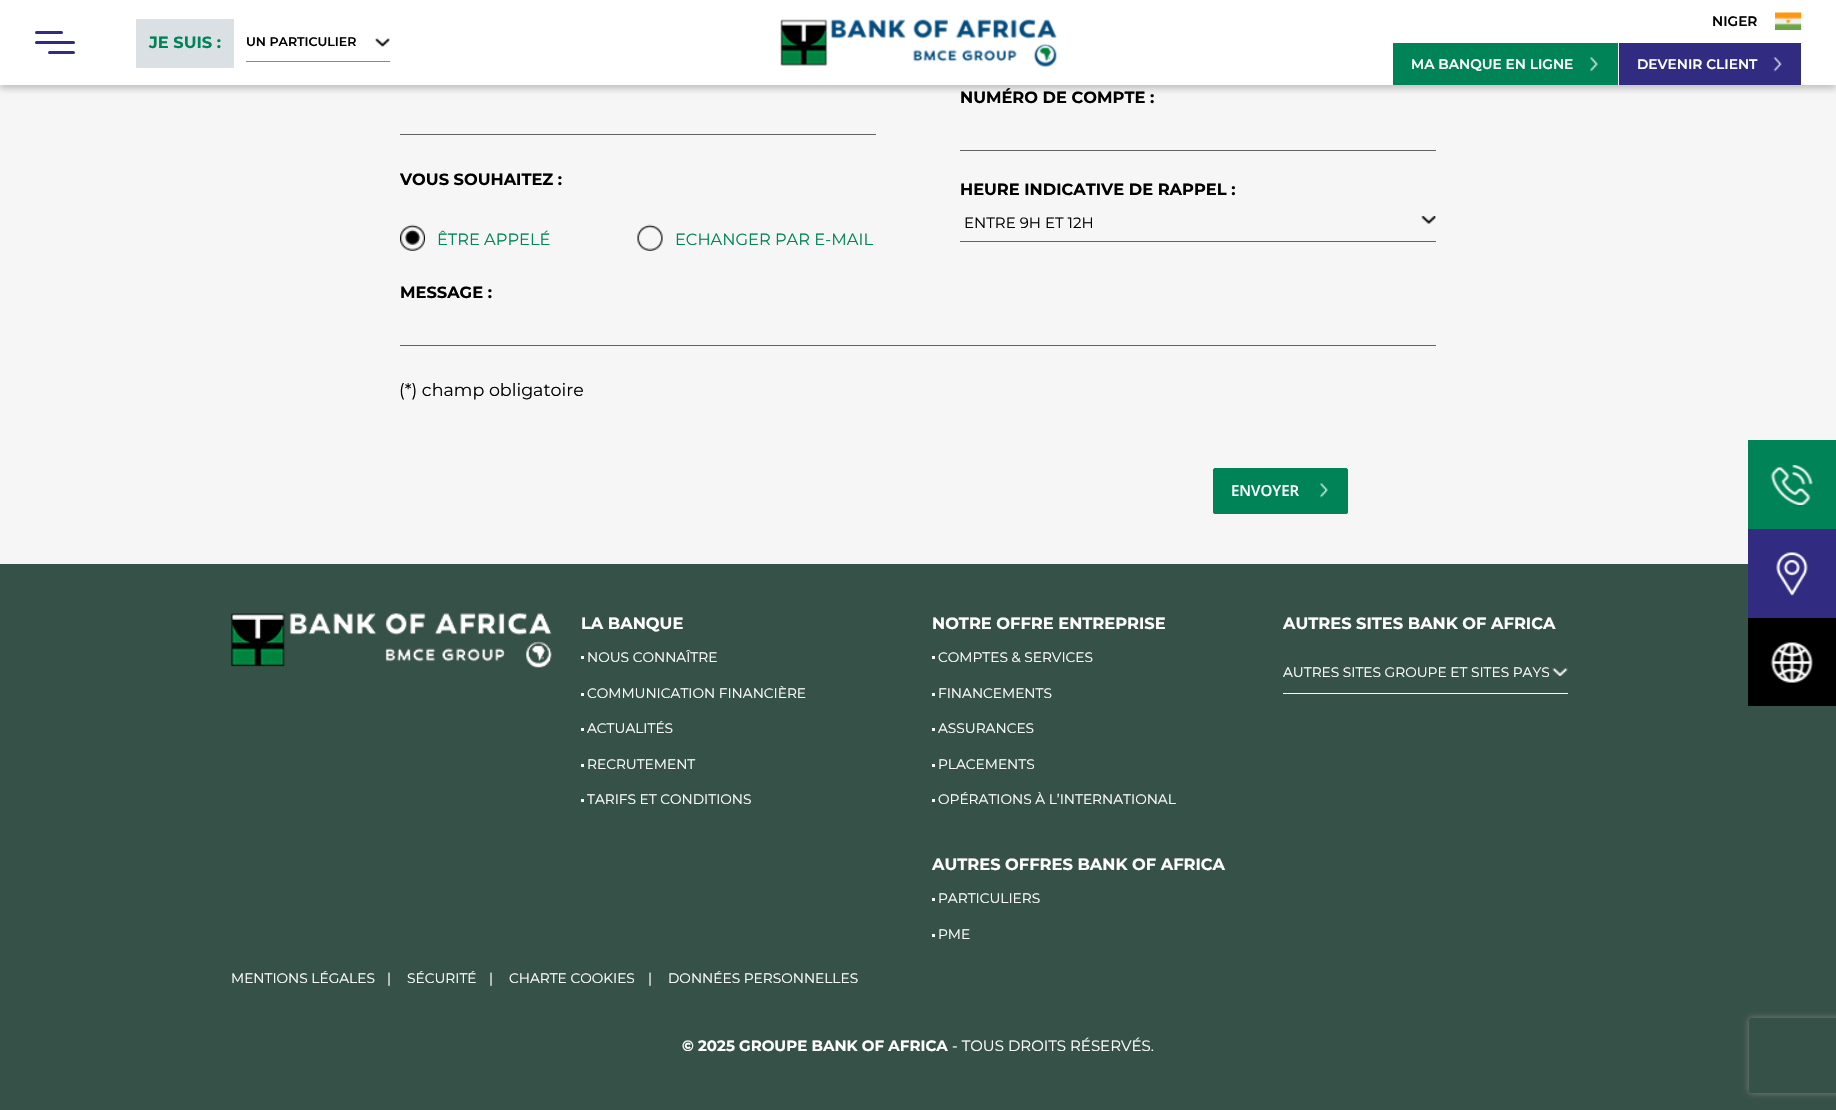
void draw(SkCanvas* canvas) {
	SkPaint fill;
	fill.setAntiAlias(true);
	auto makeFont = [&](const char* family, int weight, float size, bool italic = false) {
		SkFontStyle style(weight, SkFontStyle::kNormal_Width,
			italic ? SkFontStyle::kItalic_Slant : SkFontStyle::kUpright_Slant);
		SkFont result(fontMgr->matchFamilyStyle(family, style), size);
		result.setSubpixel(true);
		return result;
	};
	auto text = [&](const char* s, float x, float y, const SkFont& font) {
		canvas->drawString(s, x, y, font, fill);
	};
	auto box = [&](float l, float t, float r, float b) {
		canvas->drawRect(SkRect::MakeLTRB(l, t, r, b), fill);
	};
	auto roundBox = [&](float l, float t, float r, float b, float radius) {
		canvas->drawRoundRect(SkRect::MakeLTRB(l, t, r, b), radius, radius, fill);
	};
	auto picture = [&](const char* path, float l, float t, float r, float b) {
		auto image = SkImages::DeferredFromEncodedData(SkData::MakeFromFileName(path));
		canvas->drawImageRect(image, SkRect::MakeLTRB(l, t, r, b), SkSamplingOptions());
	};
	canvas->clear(0xFFF6F6F6);
	fill.setColor(0x33000000);
	fill.setMaskFilter(SkMaskFilter::MakeBlur(kNormal_SkBlurStyle, 3));
	canvas->drawRect(SkRect::MakeLTRB(0, 4, 1836, 89), fill);
	fill.setMaskFilter(nullptr);
	fill.setColor(0xFFFFFFFF);
	box(0, 0, 1836, 85);
	fill.setColor(0xFF312B81);
	roundBox(35, 41, 75, 44, 1.5f);
	roundBox(35, 31, 63, 34, 1.5f);
	roundBox(48, 51, 75, 54, 1.5f);
	fill.setColor(0xFFDAE0E4);
	box(136, 19, 234, 68);
	fill.setColor(0xFF888888);
	box(246, 61, 390, 62);
	picture("image0.png", 375, 38, 390, 47);
	picture("image1.png", 780, 19, 1057, 67);
	picture("image2.png", 1775, 12, 1802, 30);
	fill.setColor(0xFF008457);
	box(1393, 43, 1618, 85);
	picture("image3.png", 1590, 57, 1598, 72);
	fill.setColor(0xFF312B81);
	box(1619, 43, 1801, 85);
	picture("image4.png", 1773, 57, 1782, 72);
	fill.setColor(0xFF626262);
	box(400, 134, 876, 135);
	picture("image5.png", 400, 224, 425, 251);
	picture("image6.png", 637, 224, 663, 251);
	box(960, 150, 1436, 151);
	box(960, 241, 1436, 242);
	picture("image7.png", 1421, 216, 1436, 224);
	box(400, 345, 1436, 346);
	fill.setColor(0xFF008457);
	roundBox(1213, 468, 1348, 514, 2.5f);
	picture("image8.png", 1320, 483, 1328, 498);
	fill.setStyle(SkPaint::kStroke_Style);
	fill.setStrokeWidth(1);
	canvas->drawRoundRect(SkRect::MakeLTRB(1213.5f, 468.5f, 1347.5f, 513.5f), 2, 2, fill);
	fill.setStyle(SkPaint::kFill_Style);
	fill.setColor(0xFF365148);
	box(0, 564, 1836, 1110);
	picture("image9.png", 231, 613, 552, 668);
	fill.setColor(0xFFFFFFFF);
	box(581, 656, 584, 659);
	box(581, 693, 584, 696);
	box(581, 728, 584, 731);
	box(581, 764, 584, 767);
	box(581, 799, 584, 802);
	box(932, 656, 935, 659);
	box(932, 693, 935, 696);
	box(932, 728, 935, 731);
	box(932, 764, 935, 767);
	box(932, 799, 935, 802);
	box(932, 898, 935, 901);
	box(932, 934, 935, 937);
	box(1283, 693, 1568, 694);
	picture("image10.png", 1552, 668, 1568, 676);
	fill.setColor(0xFF008457);
	box(1748, 440, 1836, 529);
	picture("image11.png", 1770, 465, 1813, 505);
	fill.setColor(0xFF312B81);
	box(1748, 529, 1836, 618);
	picture("image12.png", 1776, 552, 1808, 596);
	fill.setColor(0xFF000000);
	box(1748, 618, 1836, 706);
	picture("image13.png", 1770, 642, 1813, 683);
	canvas->save();
	canvas->clipPath(SkPathBuilder(SkPathFillType::kEvenOdd).moveTo(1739, 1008).lineTo(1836, 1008).lineTo(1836, 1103).lineTo(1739, 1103).close().moveTo(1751.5f, 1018).lineTo(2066.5f, 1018).cubicTo(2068, 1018, 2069, 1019, 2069, 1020.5f).lineTo(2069, 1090.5f).cubicTo(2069, 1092, 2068, 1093, 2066.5f, 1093).lineTo(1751.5f, 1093).cubicTo(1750, 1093, 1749, 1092, 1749, 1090.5f).lineTo(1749, 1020.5f).cubicTo(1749, 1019, 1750, 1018, 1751.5f, 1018).close().detach(), true);
	fill.setColor(0xFF808080);
	fill.setMaskFilter(SkMaskFilter::MakeBlur(kNormal_SkBlurStyle, 3));
	canvas->drawRoundRect(SkRect::MakeLTRB(1749, 1018, 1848, 1093), 2.5f, 2.5f, fill);
	fill.setMaskFilter(nullptr);
	canvas->restore();
	auto font1 = makeFont("Montserrat", 700, 16.25f);
	fill.setColor(0xFF008457);
	text("JE SUIS :", 149, 48, font1);
	auto font2 = makeFont("Montserrat", 600, 12.5f);
	fill.setColor(0xFF000000);
	text("UN PARTICULIER", 246, 46, font2);
	auto font3 = makeFont("Montserrat", 600, 13.75f);
	text("NIGER", 1712, 26, font3);
	fill.setColor(0xFFFFFFFF);
	text("MA BANQUE EN LIGNE", 1411, 69, font3);
	text("DEVENIR CLIENT", 1637, 69, font3);
	fill.setColor(0xFF000000);
	text("VOUS SOUHAITEZ :", 400, 185, font1);
	auto font4 = makeFont("Montserrat", 400, 16.25f);
	fill.setColor(0xFF008457);
	text("ÊTRE APPELÉ", 437, 245, font4);
	text("ECHANGER PAR E-MAIL", 675, 245, font4);
	fill.setColor(0xFF000000);
	text("NUMÉRO DE COMPTE :", 960, 103, font1);
	text("HEURE INDICATIVE DE RAPPEL :", 960, 195, font1);
	auto font5 = makeFont("Montserrat", 400, 15);
	text("ENTRE 9H ET 12H", 964, 228, font5);
	text("MESSAGE :", 400, 298, font1);
	auto font6 = makeFont("Montserrat", 400, 17.5f);
	text("(*) champ obligatoire", 399, 396, font6);
	auto font7 = makeFont("Open Sans", 600, 15);
	fill.setColor(0xFFFFFFFF);
	text("ENVOYER", 1231, 496, font7);
	text("LA BANQUE", 581, 629, font1);
	auto font8 = makeFont("Montserrat", 400, 13.75f);
	text("NOUS CONNAÎTRE", 587, 662, font8);
	text("COMMUNICATION FINANCIÈRE", 587, 698, font8);
	text("ACTUALITÉS", 587, 733, font8);
	text("RECRUTEMENT", 587, 769, font8);
	text("TARIFS ET CONDITIONS", 587, 804, font8);
	text("NOTRE OFFRE ENTREPRISE", 932, 629, font1);
	text("COMPTES & SERVICES", 938, 662, font8);
	text("FINANCEMENTS", 938, 698, font8);
	text("ASSURANCES", 938, 733, font8);
	text("PLACEMENTS", 938, 769, font8);
	text("OPÉRATIONS À L’INTERNATIONAL", 938, 804, font8);
	text("AUTRES OFFRES BANK OF AFRICA", 932, 870, font1);
	text("PARTICULIERS", 938, 903, font8);
	text("PME", 938, 939, font8);
	text("AUTRES SITES BANK OF AFRICA", 1283, 629, font1);
	text("AUTRES SITES GROUPE ET SITES PAYS", 1283, 677, font8);
	text("MENTIONS LÉGALES", 231, 983, font8);
	text("|", 387, 983, font8);
	text("SÉCURITÉ", 407, 983, font8);
	text("|", 489, 983, font8);
	text("CHARTE COOKIES", 509, 983, font8);
	text("|", 648, 983, font8);
	text("DONNÉES PERSONNELLES", 668, 983, font8);
	auto font9 = makeFont("Montserrat", 700, 15);
	text("© 2025 GROUPE BANK OF AFRICA", 682, 1051, font9);
	text("- TOUS DROITS RÉSERVÉS.", 952, 1051, font5);
}
